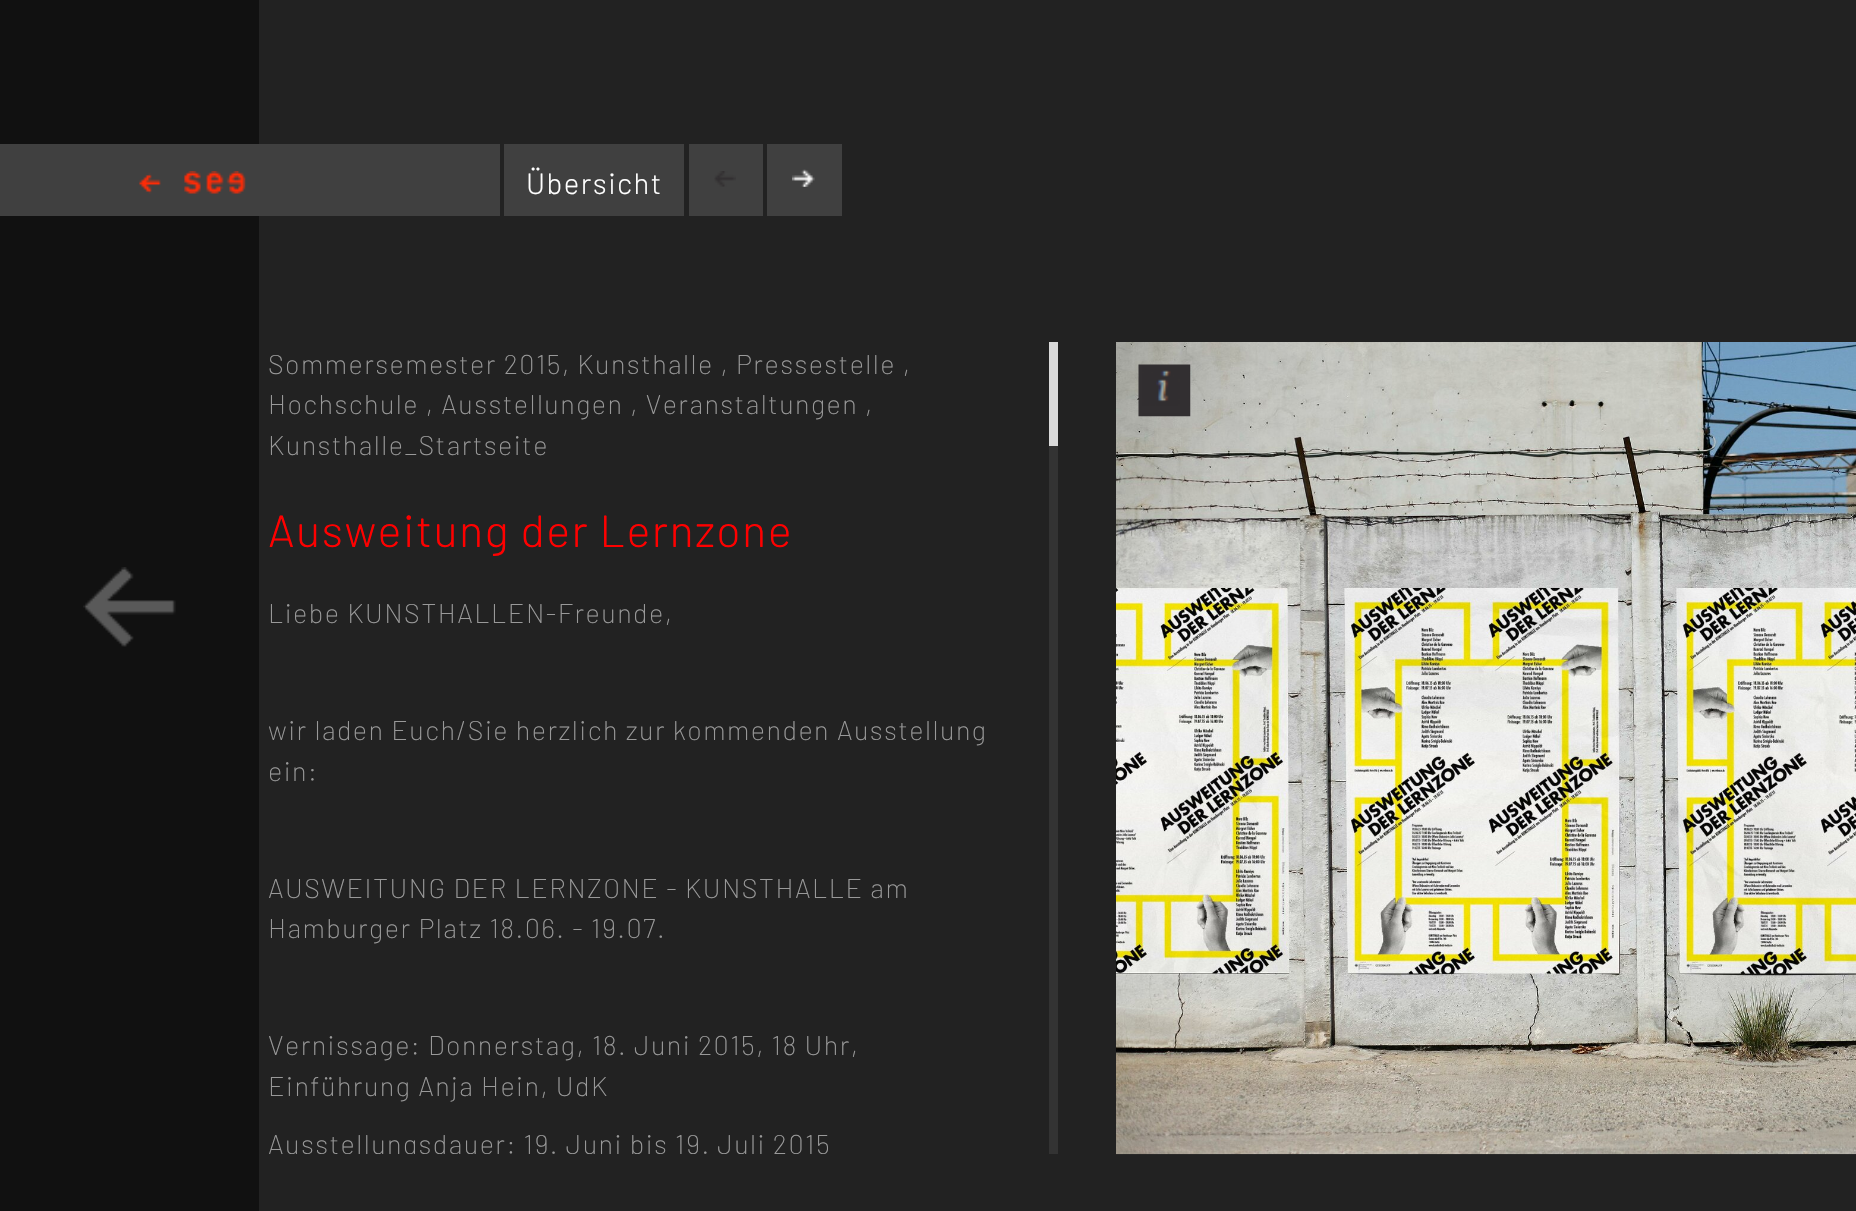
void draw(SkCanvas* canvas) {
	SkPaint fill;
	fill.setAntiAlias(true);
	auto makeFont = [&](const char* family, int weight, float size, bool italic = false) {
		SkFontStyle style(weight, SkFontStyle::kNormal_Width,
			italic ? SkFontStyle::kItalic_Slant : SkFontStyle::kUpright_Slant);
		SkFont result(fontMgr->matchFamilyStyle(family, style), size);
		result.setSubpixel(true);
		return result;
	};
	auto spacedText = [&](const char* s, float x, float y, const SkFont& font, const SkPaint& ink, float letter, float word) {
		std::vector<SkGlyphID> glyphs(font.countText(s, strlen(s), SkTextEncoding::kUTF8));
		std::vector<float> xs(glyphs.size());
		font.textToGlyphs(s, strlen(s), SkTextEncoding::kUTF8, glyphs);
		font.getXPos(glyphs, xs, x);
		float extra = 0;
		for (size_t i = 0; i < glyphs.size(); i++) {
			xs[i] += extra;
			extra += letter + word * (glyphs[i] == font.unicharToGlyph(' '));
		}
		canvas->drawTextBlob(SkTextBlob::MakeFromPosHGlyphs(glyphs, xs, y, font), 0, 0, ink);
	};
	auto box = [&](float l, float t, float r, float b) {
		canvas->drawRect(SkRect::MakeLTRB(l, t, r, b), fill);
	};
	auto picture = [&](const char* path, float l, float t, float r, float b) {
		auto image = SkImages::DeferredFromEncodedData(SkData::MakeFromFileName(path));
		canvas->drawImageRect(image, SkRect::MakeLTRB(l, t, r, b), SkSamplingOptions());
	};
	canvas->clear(0xFF222222);
	fill.setColor(0xFF111111);
	box(0, 0, 259, 1211);
	picture("image0.png", 83, 567, 176, 647);
	fill.setColor(0xFF404040);
	box(0, 144, 500, 216);
	picture("image1.png", 139, 171, 246, 194);
	box(504, 144, 684, 216);
	box(689, 144, 763, 216);
	picture("image2.png", 714, 171, 736, 187);
	box(767, 144, 842, 216);
	picture("image3.png", 792, 169, 815, 187);
	fill.setColor(0xFF333333);
	box(1049, 446, 1058, 1154);
	fill.setColor(0xFFDADADA);
	box(1049, 342, 1058, 446);
	picture("image4.png", 1116, 342, 1856, 1155);
	picture("image5.png", 1138, 364, 1191, 417);
	auto font1 = makeFont("Barlow", 300, 29.25f);
	fill.setColor(0xFFFFFFFF);
	spacedText("Übersicht", 526, 194, font1, fill, 1.45f, 0);
	auto font2 = makeFont("Barlow", 200, 27);
	fill.setColor(0xFF999999);
	spacedText("Sommersemester 2015, Kunsthalle , Pressestelle ,", 268, 374, font2, fill, 1.45f, 0);
	spacedText("Hochschule , Ausstellungen , Veranstaltungen ,", 268, 414, font2, fill, 1.45f, 0);
	spacedText("Kunsthalle_Startseite", 268, 455, font2, fill, 1.45f, 0);
	auto font3 = makeFont("Barlow", 300, 45);
	fill.setColor(0xFFFF0000);
	spacedText("Ausweitung der Lernzone", 268, 547, font3, fill, 1.45f, 0);
	fill.setColor(0xFF999999);
	spacedText("Liebe KUNSTHALLEN-Freunde,", 268, 623, font2, fill, 1.45f, 0);
	spacedText("wir laden Euch/Sie herzlich zur kommenden Ausstellung", 268, 740, font2, fill, 1.45f, 0);
	spacedText("ein:", 268, 781, font2, fill, 1.45f, 0);
	spacedText("AUSWEITUNG DER LERNZONE - KUNSTHALLE am", 268, 898, font2, fill, 1.45f, 0);
	spacedText("Hamburger Platz 18.06. - 19.07.", 268, 938, font2, fill, 1.45f, 0);
	spacedText("Vernissage: Donnerstag, 18. Juni 2015, 18 Uhr,", 268, 1055, font2, fill, 1.45f, 0);
	spacedText("Einführung Anja Hein, UdK", 268, 1096, font2, fill, 1.45f, 0);
	canvas->save();
	canvas->clipRect(SkRect::MakeLTRB(268, 342, 1006, 1154));
	spacedText("Ausstellungsdauer: 19. Juni bis 19. Juli 2015", 268, 1154, font2, fill, 1.45f, 0);
	canvas->restore();
}
